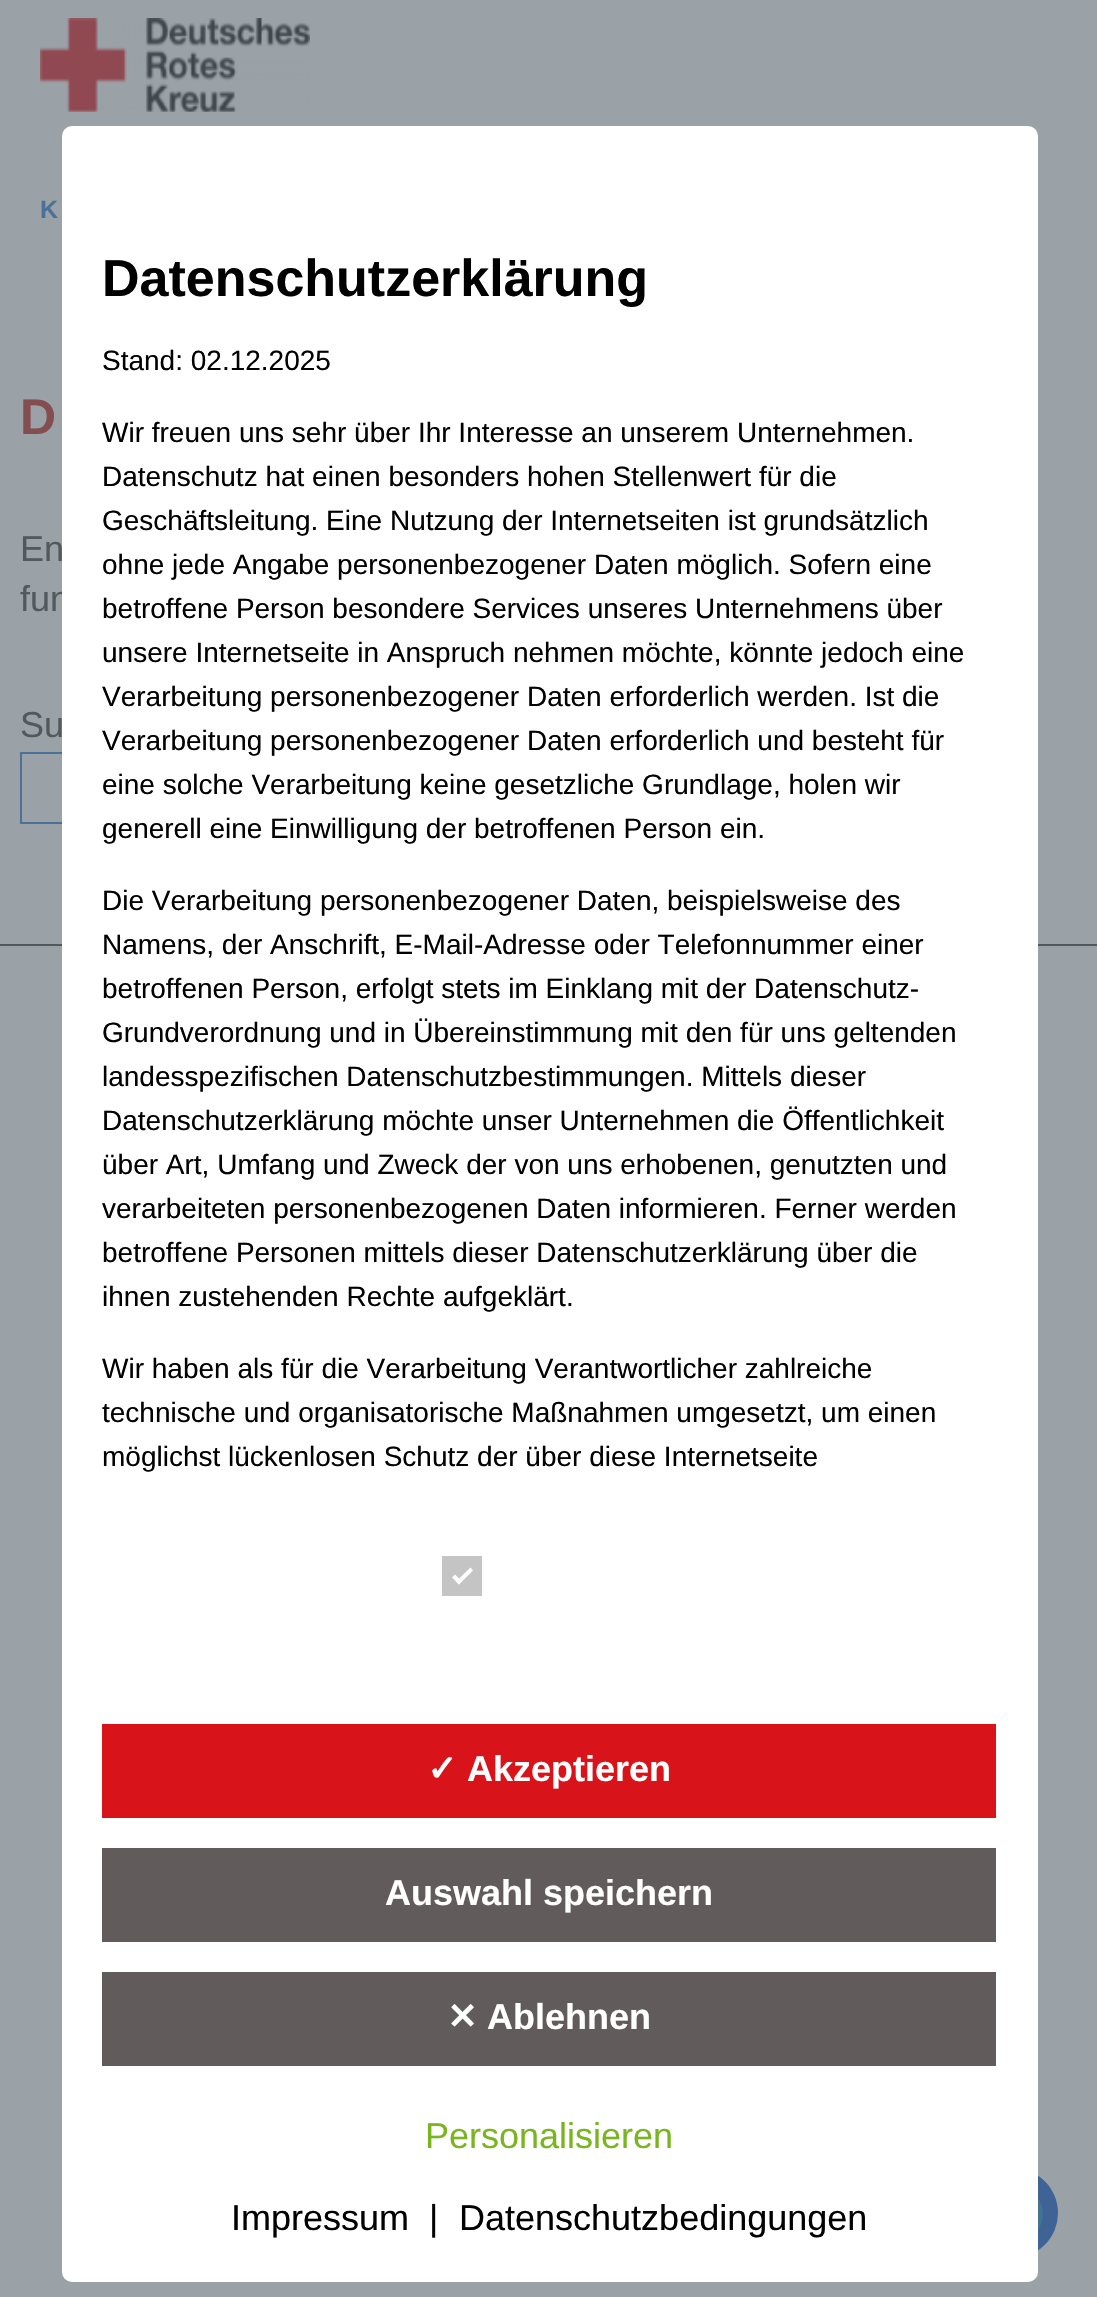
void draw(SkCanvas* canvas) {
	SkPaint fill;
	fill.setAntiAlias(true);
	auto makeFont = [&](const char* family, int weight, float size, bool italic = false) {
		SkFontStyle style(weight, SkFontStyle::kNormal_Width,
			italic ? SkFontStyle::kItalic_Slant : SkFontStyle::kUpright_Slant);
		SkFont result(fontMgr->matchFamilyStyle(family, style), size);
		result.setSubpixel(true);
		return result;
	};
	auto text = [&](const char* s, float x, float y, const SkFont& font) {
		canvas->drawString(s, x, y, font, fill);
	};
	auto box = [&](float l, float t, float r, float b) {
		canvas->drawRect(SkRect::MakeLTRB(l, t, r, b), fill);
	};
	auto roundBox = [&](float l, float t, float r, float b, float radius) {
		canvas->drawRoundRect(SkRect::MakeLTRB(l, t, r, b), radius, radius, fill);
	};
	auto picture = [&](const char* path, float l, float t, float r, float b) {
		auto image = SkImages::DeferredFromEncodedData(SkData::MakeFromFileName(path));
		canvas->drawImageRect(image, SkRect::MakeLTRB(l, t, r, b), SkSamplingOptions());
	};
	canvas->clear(0xFF9BA2A7);
	picture("image0.png", 40, 18, 310, 112);
	fill.setStyle(SkPaint::kStroke_Style);
	fill.setStrokeWidth(2);
	fill.setColor(0xFF4B7196);
	canvas->drawRect(SkRect::MakeLTRB(21, 753, 339, 823), fill);
	fill.setStyle(SkPaint::kFill_Style);
	fill.setColor(0xFF51595D);
	box(0, 944, 1097, 946);
	fill.setColor(0xFF3F6395);
	canvas->drawCircle(1013, 2213, 45, fill);
	picture("image1.png", 1038, 2198, 1043, 2230);
	auto font1 = makeFont("Liberation Sans", 700, 25);
	fill.setColor(0xFF4B7196);
	text("K", 40, 218, font1);
	auto font2 = makeFont("Liberation Sans", 700, 50);
	fill.setColor(0xFF844D50);
	text("D", 20, 434, font2);
	auto font3 = makeFont("Liberation Sans", 400, 36);
	fill.setColor(0xFF51595D);
	text("En", 20, 561, font3);
	text("fun", 20, 611, font3);
	text("Su", 20, 737, font3);
	fill.setColor(0xFFFFFFFF);
	roundBox(62, 126, 1038, 2282, 10);
	auto font4 = makeFont("Liberation Sans", 700, 52);
	fill.setColor(0xFF010101);
	text("Datenschutzerklärung", 102, 296, font4);
	auto font5 = makeFont("Liberation Sans", 400, 28);
	text("Stand: 02.12.2025", 102, 370, font5);
	text("Wir freuen uns sehr über Ihr Interesse an unserem Unternehmen.", 102, 442, font5);
	text("Datenschutz hat einen besonders hohen Stellenwert für die", 102, 486, font5);
	text("Geschäftsleitung. Eine Nutzung der Internetseiten ist grundsätzlich", 102, 530, font5);
	text("ohne jede Angabe personenbezogener Daten möglich. Sofern eine", 102, 574, font5);
	text("betroffene Person besondere Services unseres Unternehmens über", 102, 618, font5);
	text("unsere Internetseite in Anspruch nehmen möchte, könnte jedoch eine", 102, 662, font5);
	text("Verarbeitung personenbezogener Daten erforderlich werden. Ist die", 102, 706, font5);
	text("Verarbeitung personenbezogener Daten erforderlich und besteht für", 102, 750, font5);
	text("eine solche Verarbeitung keine gesetzliche Grundlage, holen wir", 102, 794, font5);
	text("generell eine Einwilligung der betroffenen Person ein.", 102, 838, font5);
	text("Die Verarbeitung personenbezogener Daten, beispielsweise des", 102, 910, font5);
	text("Namens, der Anschrift, E-Mail-Adresse oder Telefonnummer einer", 102, 954, font5);
	text("betroffenen Person, erfolgt stets im Einklang mit der Datenschutz-", 102, 998, font5);
	text("Grundverordnung und in Übereinstimmung mit den für uns geltenden", 102, 1042, font5);
	text("landesspezifischen Datenschutzbestimmungen. Mittels dieser", 102, 1086, font5);
	text("Datenschutzerklärung möchte unser Unternehmen die Öffentlichkeit", 102, 1130, font5);
	text("über Art, Umfang und Zweck der von uns erhobenen, genutzten und", 102, 1174, font5);
	text("verarbeiteten personenbezogenen Daten informieren. Ferner werden", 102, 1218, font5);
	text("betroffene Personen mittels dieser Datenschutzerklärung über die", 102, 1262, font5);
	text("ihnen zustehenden Rechte aufgeklärt.", 102, 1306, font5);
	text("Wir haben als für die Verarbeitung Verantwortlicher zahlreiche", 102, 1378, font5);
	text("technische und organisatorische Maßnahmen umgesetzt, um einen", 102, 1422, font5);
	text("möglichst lückenlosen Schutz der über diese Internetseite", 102, 1466, font5);
	fill.setColor(0xFFC4C4C4);
	box(442, 1556, 482, 1596);
	fill.setColor(0xFFFFFFFF);
	canvas->drawPath(SkPathBuilder().moveTo(470.5f, 1567.5f).lineTo(473, 1570.5f).lineTo(459, 1584.5f).lineTo(456, 1581.5f).close().detach(), fill);
	canvas->drawPath(SkPathBuilder().moveTo(455, 1574.5f).lineTo(462, 1581.5f).lineTo(459, 1584.5f).lineTo(452, 1577.5f).close().detach(), fill);
	fill.setColor(0xFFD8131A);
	box(102, 1724, 996, 1818);
	auto font6 = makeFont("DejaVu Sans", 700, 36);
	fill.setColor(0xFFFFFFFF);
	text("✓", 427, 1781, font6);
	auto font7 = makeFont("Liberation Sans", 700, 36);
	text("Akzeptieren", 467, 1781, font7);
	fill.setColor(0xFF615B5B);
	box(102, 1848, 996, 1942);
	fill.setColor(0xFFFFFFFF);
	text("Auswahl speichern", 385, 1905, font7);
	fill.setColor(0xFF615B5B);
	box(102, 1972, 996, 2066);
	fill.setColor(0xFFFFFFFF);
	text("✕", 447, 2029, font6);
	text("Ablehnen", 487, 2029, font7);
	fill.setColor(0xFF79B51F);
	text("Personalisieren", 425, 2148, font3);
	fill.setColor(0xFF010101);
	text("Impressum", 231, 2230, font3);
	text("|", 429, 2230, font3);
	text("Datenschutzbedingungen", 459, 2230, font3);
}
